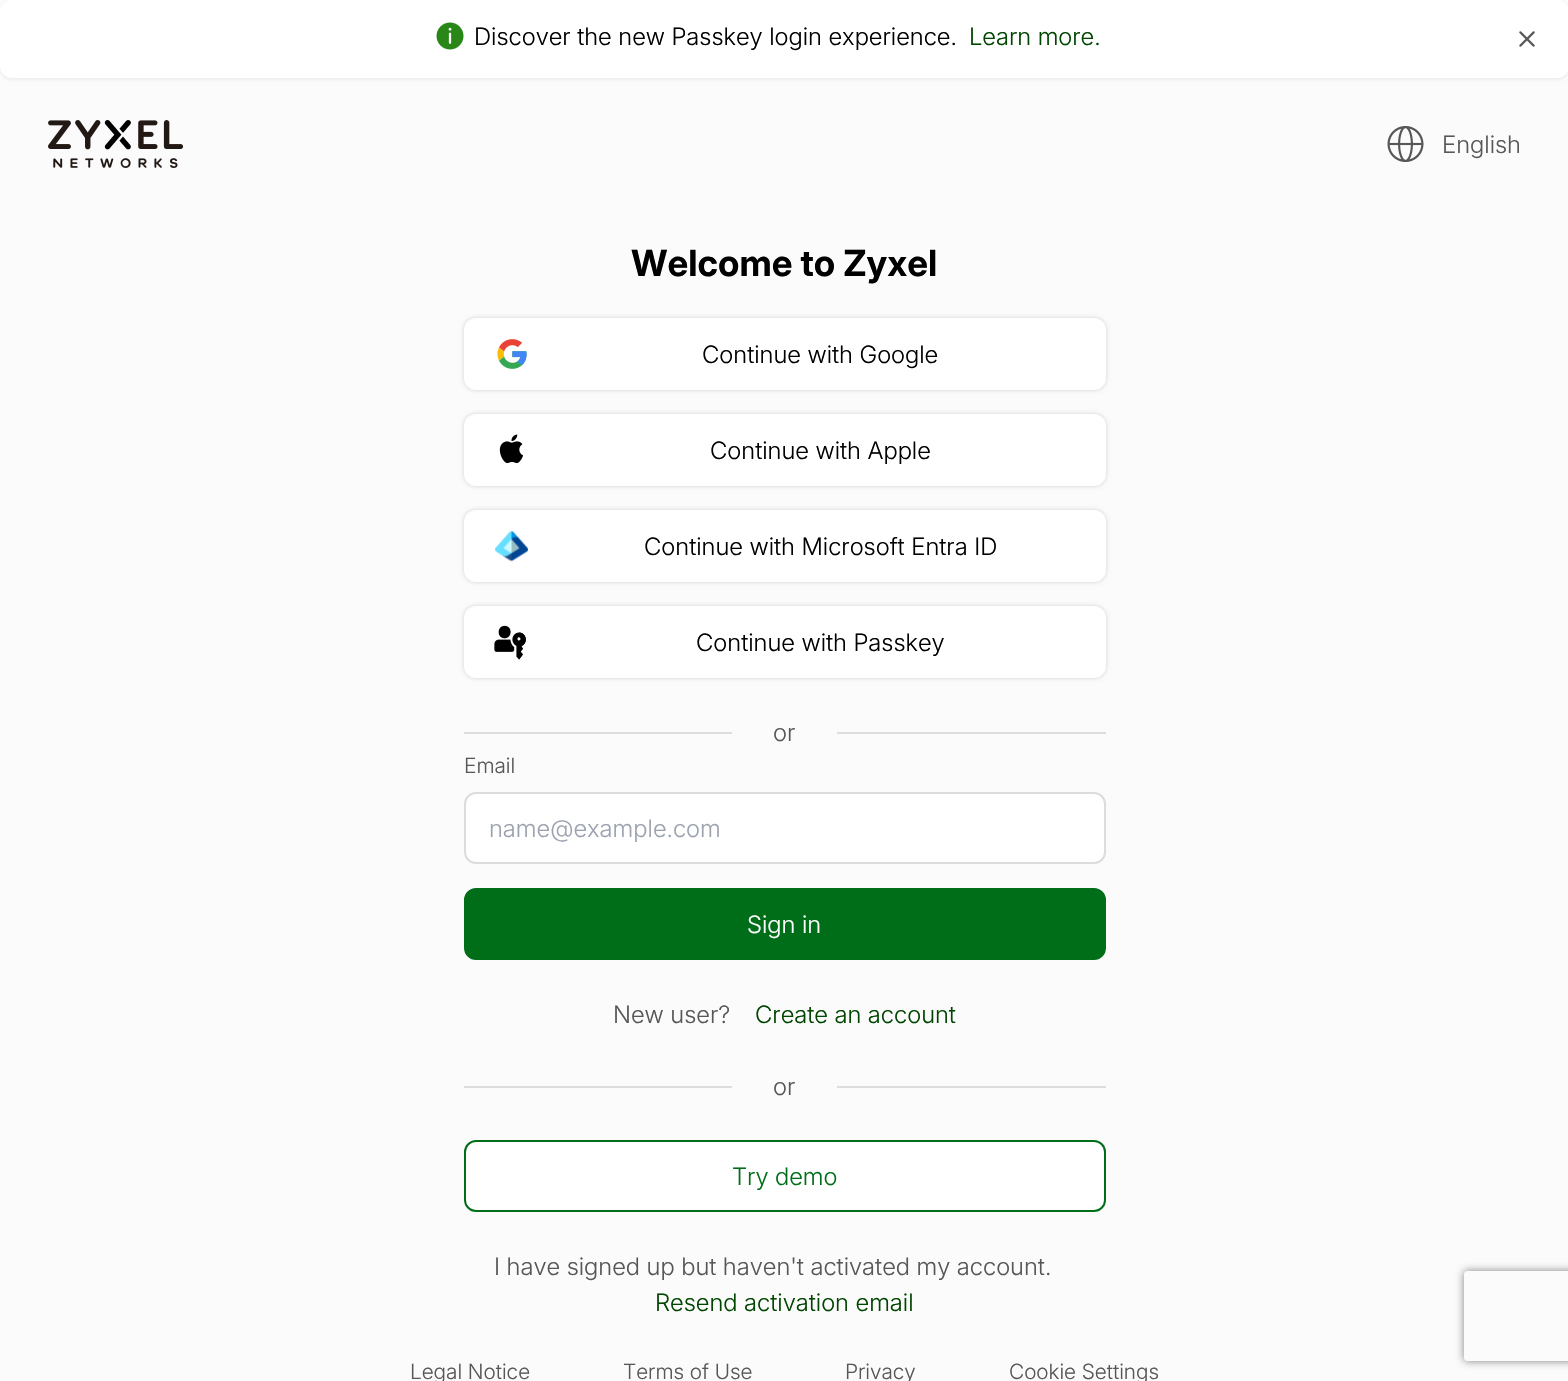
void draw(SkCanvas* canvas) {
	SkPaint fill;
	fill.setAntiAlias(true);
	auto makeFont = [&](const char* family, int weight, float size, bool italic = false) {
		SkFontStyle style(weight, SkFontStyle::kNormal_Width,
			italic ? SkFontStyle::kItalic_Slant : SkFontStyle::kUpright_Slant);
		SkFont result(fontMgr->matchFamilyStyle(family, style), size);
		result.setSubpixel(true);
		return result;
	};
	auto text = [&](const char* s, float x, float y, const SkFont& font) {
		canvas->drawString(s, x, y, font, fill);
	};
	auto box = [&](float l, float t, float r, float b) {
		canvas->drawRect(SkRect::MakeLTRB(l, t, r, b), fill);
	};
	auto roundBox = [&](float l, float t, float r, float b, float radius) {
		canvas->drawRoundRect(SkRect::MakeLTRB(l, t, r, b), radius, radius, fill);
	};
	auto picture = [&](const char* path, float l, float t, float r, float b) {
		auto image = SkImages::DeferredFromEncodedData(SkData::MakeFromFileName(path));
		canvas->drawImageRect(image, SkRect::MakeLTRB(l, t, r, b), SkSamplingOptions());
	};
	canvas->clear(0xFFFBFBFB);
	fill.setColor(0x0D000000);
	fill.setMaskFilter(SkMaskFilter::MakeBlur(kNormal_SkBlurStyle, 1.5f));
	canvas->drawRoundRect(SkRect::MakeLTRB(0, 2, 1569, 80), 12, 12, fill);
	fill.setMaskFilter(nullptr);
	fill.setColor(0xFFFFFFFF);
	roundBox(0, 0, 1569, 78, 12);
	picture("image0.png", 436, 22, 464, 50);
	picture("image1.png", 1519, 31, 1535, 47);
	picture("image2.png", 48, 120, 183, 168);
	picture("image3.png", 1387, 125, 1424, 162);
	fill.setColor(0x29000000);
	fill.setMaskFilter(SkMaskFilter::MakeBlur(kNormal_SkBlurStyle, 2));
	canvas->drawRoundRect(SkRect::MakeLTRB(464, 318, 1106, 390), 12, 12, fill);
	fill.setMaskFilter(nullptr);
	fill.setColor(0xFFFFFFFF);
	roundBox(464, 318, 1106, 390, 12);
	picture("image4.png", 497, 339, 527, 369);
	fill.setColor(0x29000000);
	fill.setMaskFilter(SkMaskFilter::MakeBlur(kNormal_SkBlurStyle, 2));
	canvas->drawRoundRect(SkRect::MakeLTRB(464, 414, 1106, 486), 12, 12, fill);
	fill.setMaskFilter(nullptr);
	fill.setColor(0xFFFFFFFF);
	roundBox(464, 414, 1106, 486, 12);
	picture("image5.png", 499, 434, 524, 464);
	fill.setColor(0x29000000);
	fill.setMaskFilter(SkMaskFilter::MakeBlur(kNormal_SkBlurStyle, 2));
	canvas->drawRoundRect(SkRect::MakeLTRB(464, 510, 1106, 582), 12, 12, fill);
	fill.setMaskFilter(nullptr);
	fill.setColor(0xFFFFFFFF);
	roundBox(464, 510, 1106, 582, 12);
	picture("image6.png", 495, 530, 528, 562);
	fill.setColor(0x29000000);
	fill.setMaskFilter(SkMaskFilter::MakeBlur(kNormal_SkBlurStyle, 2));
	canvas->drawRoundRect(SkRect::MakeLTRB(464, 606, 1106, 678), 12, 12, fill);
	fill.setMaskFilter(nullptr);
	fill.setColor(0xFFFFFFFF);
	roundBox(464, 606, 1106, 678, 12);
	picture("image7.png", 494, 625, 526, 660);
	fill.setColor(0xFFDDDDDD);
	box(464, 732, 732, 734);
	box(837, 732, 1106, 734);
	fill.setColor(0xFFFFFFFF);
	canvas->drawRoundRect(SkRect::MakeLTRB(465, 793, 1105, 863), 11, 11, fill);
	fill.setStyle(SkPaint::kStroke_Style);
	fill.setStrokeWidth(2);
	fill.setColor(0xFFDCDCDC);
	canvas->drawRoundRect(SkRect::MakeLTRB(465, 793, 1105, 863), 11, 11, fill);
	fill.setStyle(SkPaint::kFill_Style);
	fill.setColor(0xFF006E18);
	canvas->drawRoundRect(SkRect::MakeLTRB(465, 889, 1105, 959), 11, 11, fill);
	fill.setStyle(SkPaint::kStroke_Style);
	canvas->drawRoundRect(SkRect::MakeLTRB(465, 889, 1105, 959), 11, 11, fill);
	fill.setStyle(SkPaint::kFill_Style);
	fill.setColor(0xFFDDDDDD);
	box(464, 1086, 732, 1088);
	box(837, 1086, 1106, 1088);
	fill.setColor(0xFFFFFFFF);
	canvas->drawRoundRect(SkRect::MakeLTRB(465, 1141, 1105, 1211), 11, 11, fill);
	fill.setStyle(SkPaint::kStroke_Style);
	fill.setColor(0xFF006E18);
	canvas->drawRoundRect(SkRect::MakeLTRB(465, 1141, 1105, 1211), 11, 11, fill);
	canvas->save();
	canvas->clipPath(SkPathBuilder(SkPathFillType::kEvenOdd).moveTo(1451, 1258).lineTo(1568, 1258).lineTo(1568, 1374).lineTo(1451, 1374).close().moveTo(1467, 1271).lineTo(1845, 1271).cubicTo(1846.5f, 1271, 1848, 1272.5f, 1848, 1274).lineTo(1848, 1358).cubicTo(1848, 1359.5f, 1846.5f, 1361, 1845, 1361).lineTo(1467, 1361).cubicTo(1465.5f, 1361, 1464, 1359.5f, 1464, 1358).lineTo(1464, 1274).cubicTo(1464, 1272.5f, 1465.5f, 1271, 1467, 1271).close().detach(), true);
	fill.setStyle(SkPaint::kFill_Style);
	fill.setColor(0xFF808080);
	fill.setMaskFilter(SkMaskFilter::MakeBlur(kNormal_SkBlurStyle, 4));
	canvas->drawRoundRect(SkRect::MakeLTRB(1464, 1271, 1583, 1361), 3, 3, fill);
	fill.setMaskFilter(nullptr);
	canvas->restore();
	auto font1 = makeFont("Inter", 300, 24);
	fill.setColor(0xFF000000);
	text("Discover the new Passkey login experience.", 474, 45, font1);
	fill.setColor(0xFF004600);
	text("Learn more.", 969, 45, font1);
	fill.setColor(0xFF575757);
	text("English", 1442, 153, font1);
	auto font2 = makeFont("Inter", 700, 36);
	fill.setColor(0xFF000000);
	text("Welcome to Zyxel", 631, 276, font2);
	text("Continue with Google", 702, 363, font1);
	text("Continue with Apple", 710, 459, font1);
	text("Continue with Microsoft Entra ID", 644, 555, font1);
	text("Continue with Passkey", 696, 651, font1);
	fill.setColor(0xFF575757);
	text("or", 773, 741, font1);
	auto font3 = makeFont("Inter", 300, 21);
	text("Email", 464, 773, font3);
	fill.setColor(0xFF9CA3AF);
	text("name@example.com", 489, 837, font1);
	fill.setColor(0xFFFFFFFF);
	text("Sign in", 747, 933, font1);
	fill.setColor(0xFF575757);
	text("New user?", 613, 1023, font1);
	fill.setColor(0xFF004600);
	text("Create an account", 755, 1023, font1);
	fill.setColor(0xFF575757);
	text("or", 773, 1095, font1);
	fill.setColor(0xFF006E18);
	text("Try demo", 732, 1185, font1);
	fill.setColor(0xFF575757);
	text("I have signed up but haven't activated my account.", 494, 1275, font1);
	fill.setColor(0xFF004600);
	text("Resend activation email", 655, 1311, font1);
	fill.setColor(0xFF575757);
	text("Legal Notice", 410, 1379, font3);
	text("Terms of Use", 623, 1379, font3);
	text("Privacy", 845, 1379, font3);
	text("Cookie Settings", 1009, 1379, font3);
}
